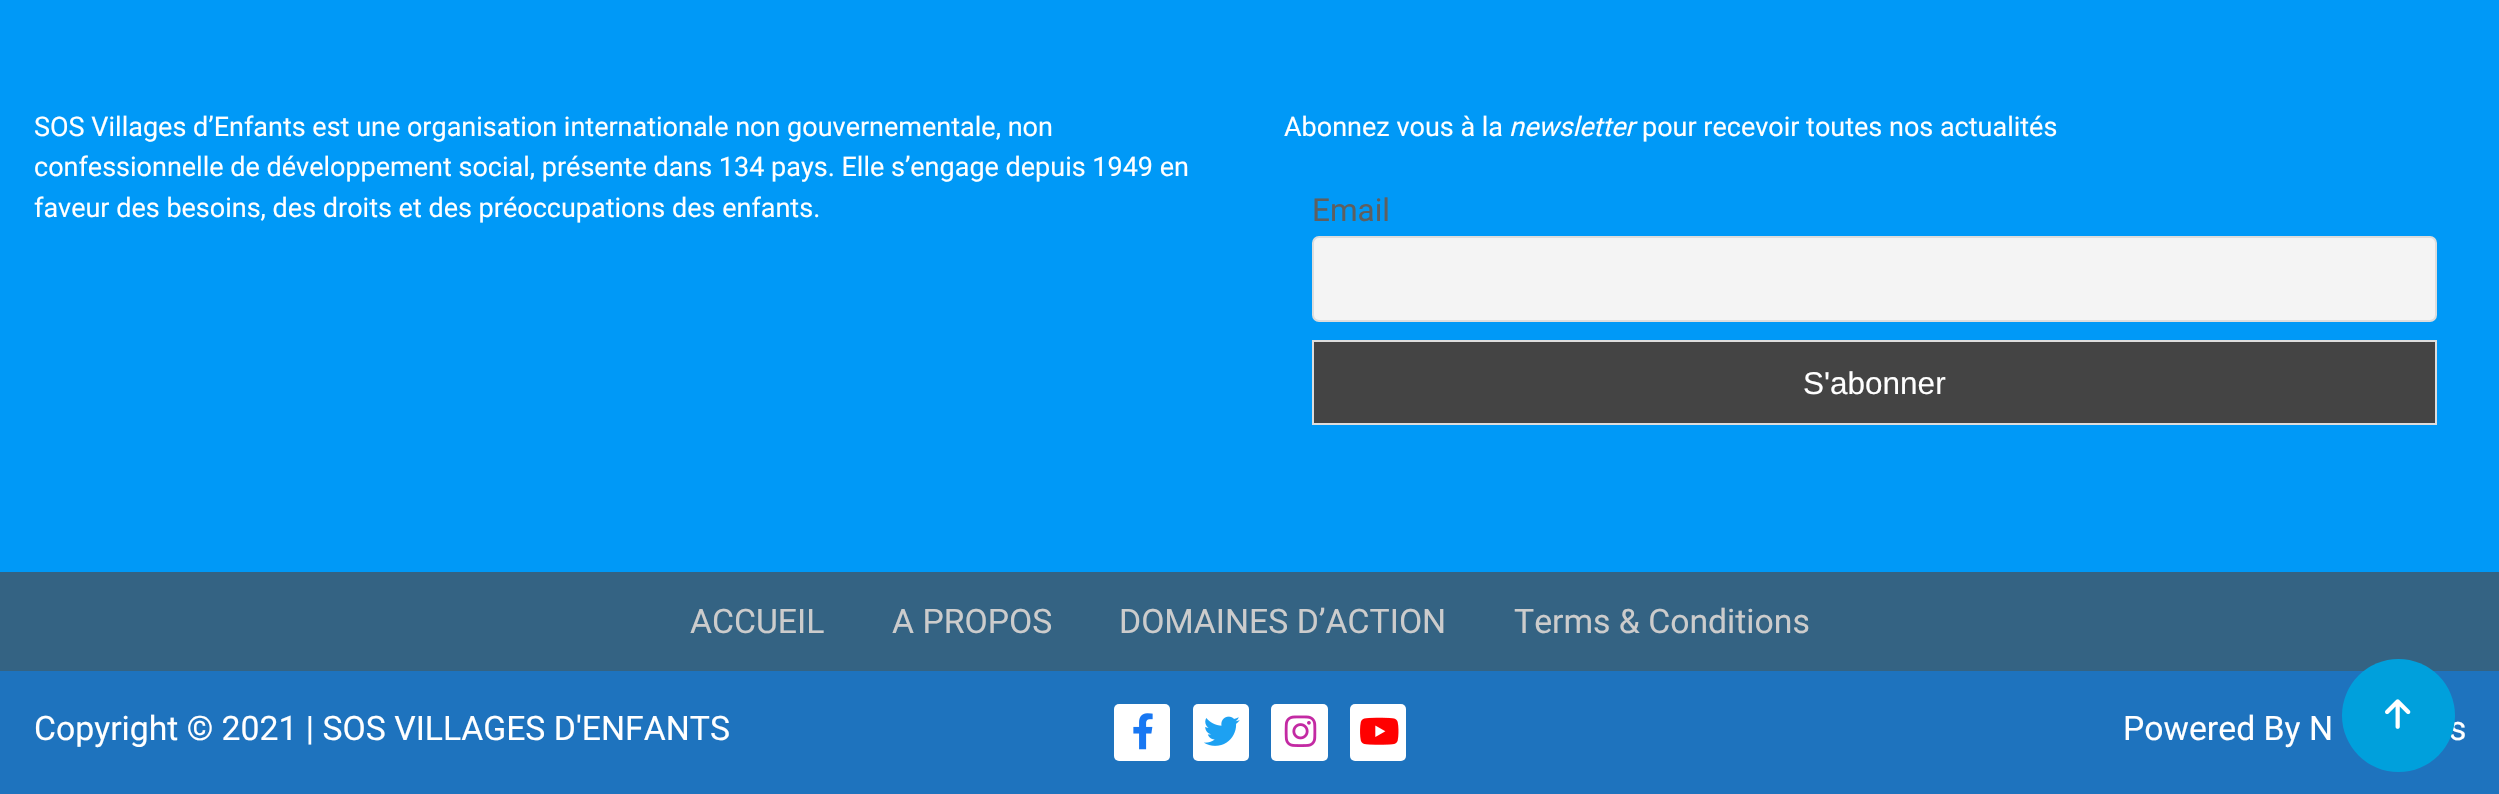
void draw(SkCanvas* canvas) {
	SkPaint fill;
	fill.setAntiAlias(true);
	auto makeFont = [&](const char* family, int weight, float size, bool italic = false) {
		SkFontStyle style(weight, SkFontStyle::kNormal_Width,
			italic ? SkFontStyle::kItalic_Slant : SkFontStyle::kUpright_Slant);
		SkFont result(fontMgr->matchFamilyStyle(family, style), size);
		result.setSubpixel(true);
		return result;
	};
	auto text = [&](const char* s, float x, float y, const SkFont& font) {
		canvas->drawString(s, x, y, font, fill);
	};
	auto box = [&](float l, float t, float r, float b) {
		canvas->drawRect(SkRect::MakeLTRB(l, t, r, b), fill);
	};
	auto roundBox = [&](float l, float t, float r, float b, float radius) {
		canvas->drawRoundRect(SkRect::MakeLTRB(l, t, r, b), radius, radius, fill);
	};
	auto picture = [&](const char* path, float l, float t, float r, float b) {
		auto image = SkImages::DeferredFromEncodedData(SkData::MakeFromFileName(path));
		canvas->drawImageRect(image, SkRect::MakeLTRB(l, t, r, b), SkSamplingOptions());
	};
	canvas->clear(0xFF0099F7);
	fill.setColor(0xFFF4F4F4);
	canvas->drawRoundRect(SkRect::MakeLTRB(1313, 237, 2436, 321), 6, 6, fill);
	fill.setStyle(SkPaint::kStroke_Style);
	fill.setStrokeWidth(2);
	fill.setColor(0xFFDDDDDD);
	canvas->drawRoundRect(SkRect::MakeLTRB(1313, 237, 2436, 321), 6, 6, fill);
	fill.setStyle(SkPaint::kFill_Style);
	fill.setColor(0xFF444444);
	canvas->drawRect(SkRect::MakeLTRB(1313, 341, 2436, 424), fill);
	fill.setStyle(SkPaint::kStroke_Style);
	fill.setColor(0xFFDDDDDD);
	canvas->drawRect(SkRect::MakeLTRB(1313, 341, 2436, 424), fill);
	fill.setStyle(SkPaint::kFill_Style);
	fill.setColor(0xFF346383);
	box(0, 572, 2499, 671);
	fill.setColor(0xFF1E73BE);
	box(0, 671, 2499, 794);
	fill.setColor(0xFFFFFFFF);
	roundBox(1114, 704, 1170, 761, 5);
	picture("image0.png", 1133, 713, 1153, 750);
	roundBox(1193, 704, 1249, 761, 5);
	picture("image1.png", 1204, 716, 1240, 746);
	roundBox(1271, 704, 1328, 761, 5);
	picture("image2.png", 1284, 715, 1317, 747);
	roundBox(1350, 704, 1406, 761, 5);
	picture("image3.png", 1360, 717, 1399, 745);
	auto font1 = makeFont("Roboto", 400, 27);
	text("SOS Villages d’Enfants est une organisation internationale non gouvernementale, non", 34, 136, font1);
	text("confessionnelle de développement social, présente dans 134 pays. Elle s’engage depuis 1949 en", 34, 176, font1);
	text("faveur des besoins, des droits et des préoccupations des enfants.", 34, 217, font1);
	text("Abonnez vous à la", 1284, 136, font1);
	auto font2 = makeFont("Roboto", 400, 27, true);
	text("newsletter", 1509, 136, font2);
	text("pour recevoir toutes nos actualités", 1642, 136, font1);
	auto font3 = makeFont("Roboto", 400, 31.5f);
	fill.setColor(0xFF5F5F5F);
	text("Email", 1312, 221, font3);
	auto font4 = makeFont("Liberation Sans", 400, 31.5f);
	fill.setColor(0xFFFFFFFF);
	text("S'abonner", 1803, 394, font4);
	auto font5 = makeFont("Roboto", 400, 33.75f);
	fill.setColor(0xFFCCCCCC);
	text("ACCUEIL", 690, 633, font5);
	text("A PROPOS", 892, 633, font5);
	text("DOMAINES D’ACTION", 1119, 633, font5);
	text("Terms & Conditions", 1514, 633, font5);
	fill.setColor(0xFFFFFFFF);
	text("Copyright © 2021 | SOS VILLAGES D'ENFANTS", 34, 740, font5);
	text("Powered By N", 2123, 740, font5);
	text("s", 2449, 740, font5);
	fill.setColor(0xFF00A0DC);
	canvas->drawCircle(2398.5f, 715.5f, 56.5f, fill);
	picture("image4.png", 2385, 699, 2411, 729);
}
